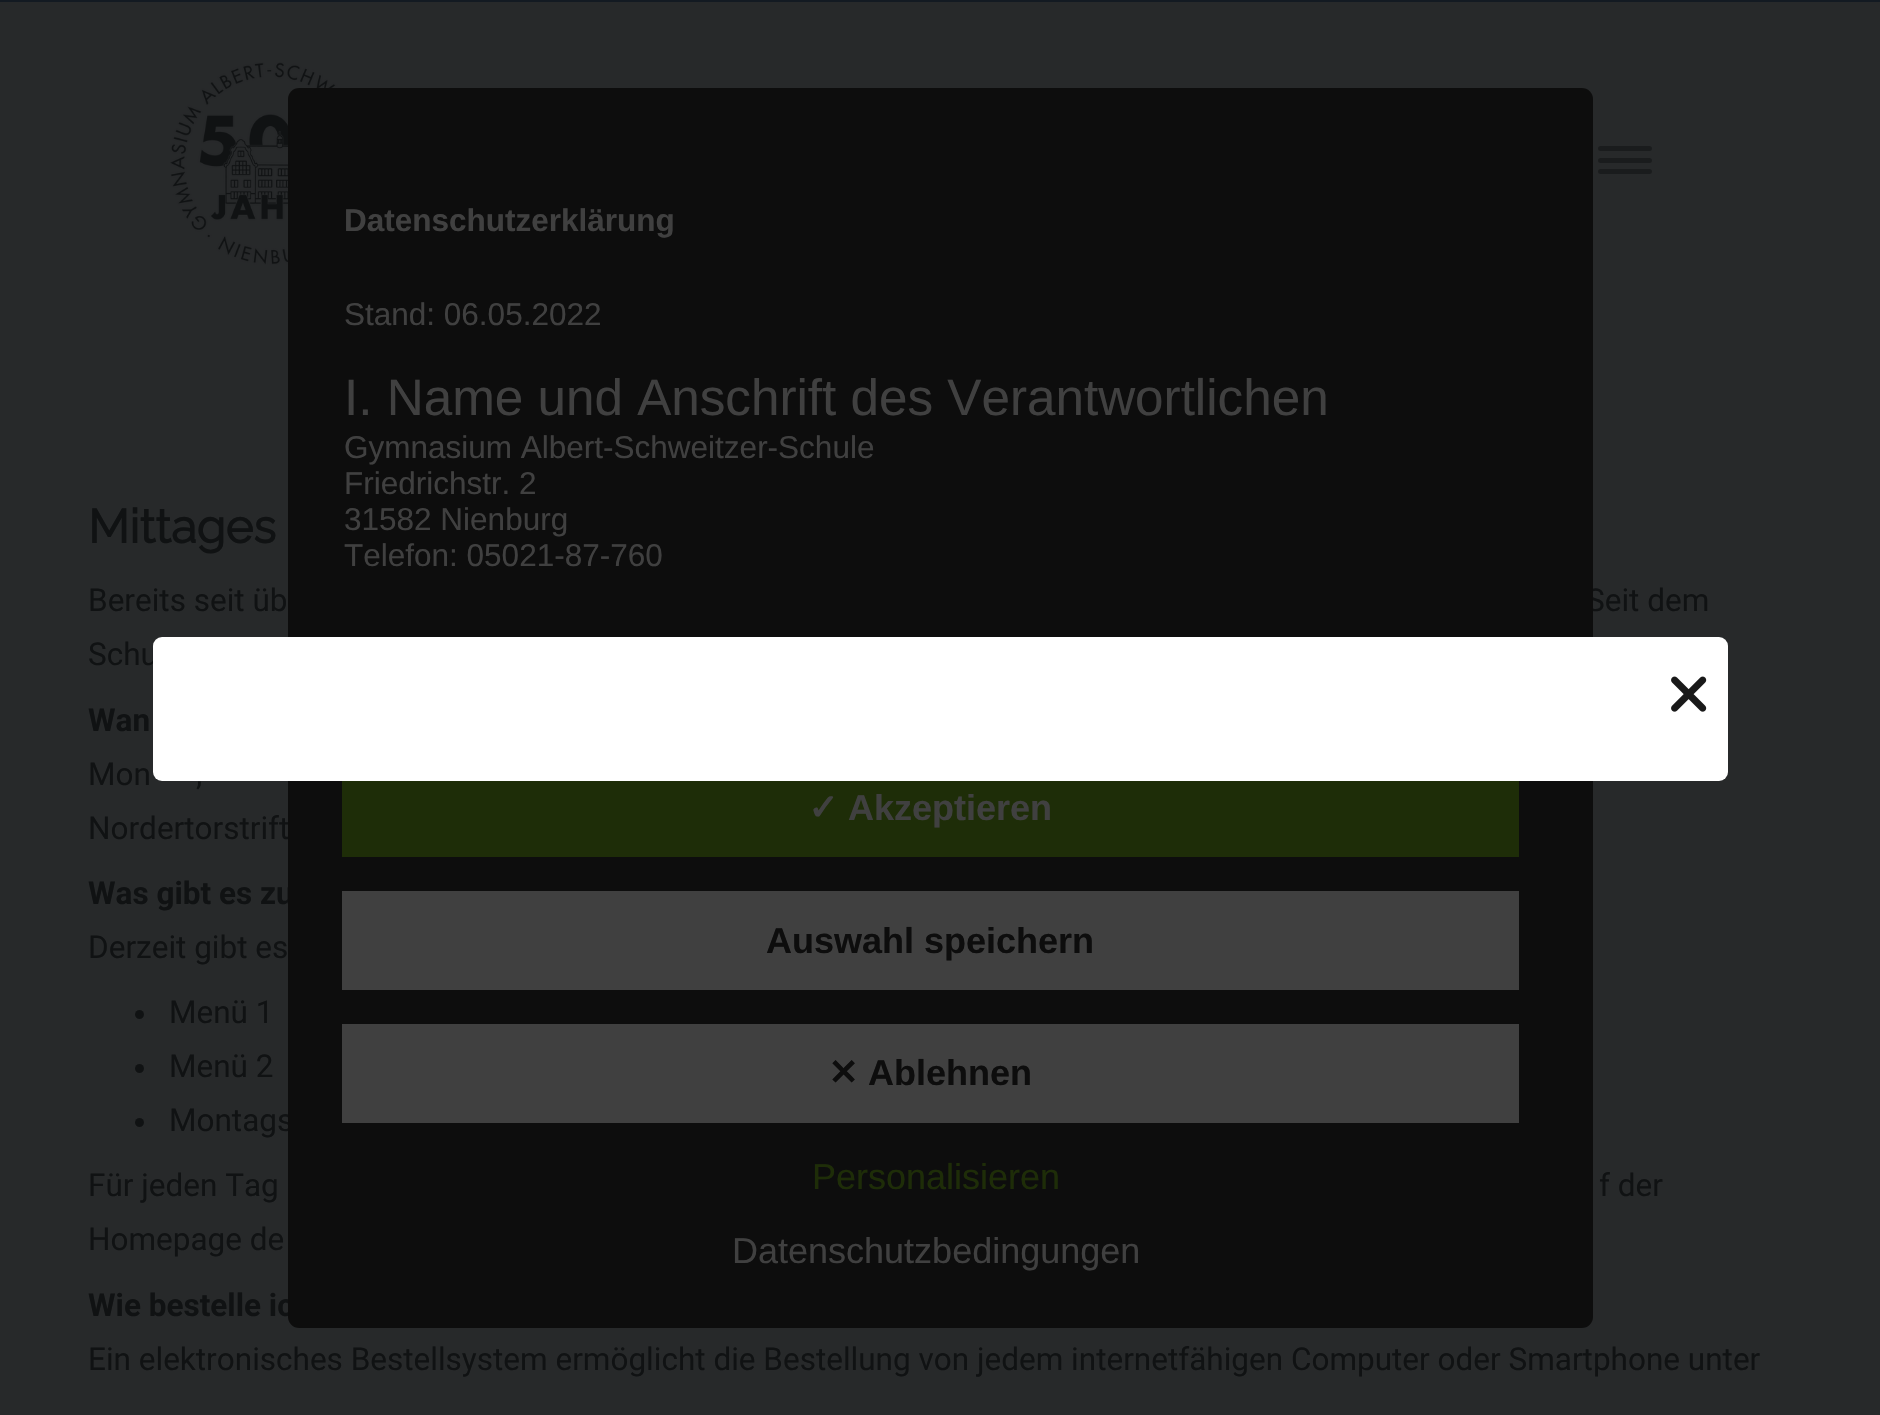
void draw(SkCanvas* canvas) {
	SkPaint fill;
	fill.setAntiAlias(true);
	auto makeFont = [&](const char* family, int weight, float size, bool italic = false) {
		SkFontStyle style(weight, SkFontStyle::kNormal_Width,
			italic ? SkFontStyle::kItalic_Slant : SkFontStyle::kUpright_Slant);
		SkFont result(fontMgr->matchFamilyStyle(family, style), size);
		result.setSubpixel(true);
		return result;
	};
	auto text = [&](const char* s, float x, float y, const SkFont& font) {
		canvas->drawString(s, x, y, font, fill);
	};
	auto box = [&](float l, float t, float r, float b) {
		canvas->drawRect(SkRect::MakeLTRB(l, t, r, b), fill);
	};
	auto roundBox = [&](float l, float t, float r, float b, float radius) {
		canvas->drawRoundRect(SkRect::MakeLTRB(l, t, r, b), radius, radius, fill);
	};
	auto picture = [&](const char* path, float l, float t, float r, float b) {
		auto image = SkImages::DeferredFromEncodedData(SkData::MakeFromFileName(path));
		canvas->drawImageRect(image, SkRect::MakeLTRB(l, t, r, b), SkSamplingOptions());
	};
	canvas->clear(0xFF27292A);
	fill.setColor(0xFF131A22);
	box(0, 0, 1880, 2);
	picture("image0.png", 170, 62, 373, 265);
	fill.setColor(0xFF1A1C1D);
	roundBox(1598, 146, 1652, 151, 2.5f);
	roundBox(1598, 158, 1652, 163, 2.5f);
	roundBox(1598, 169, 1652, 174, 2.5f);
	fill.setColor(0xFF101213);
	canvas->drawCircle(139.5f, 1014.5f, 4.5f, fill);
	canvas->drawCircle(139.5f, 1068.5f, 4.5f, fill);
	canvas->drawCircle(139.5f, 1122.5f, 4.5f, fill);
	auto font1 = makeFont("Raleway", 700, 47);
	text("Mittages", 88, 543, font1);
	auto font2 = makeFont("Roboto", 400, 31.5f);
	text("Bereits seit üb", 88, 611, font2);
	text("Seit dem", 1586, 611, font2);
	text("Schu", 88, 665, font2);
	auto font3 = makeFont("Roboto", 700, 31.5f);
	text("Wan", 88, 731, font3);
	text("Mon", 88, 785, font2);
	text(",", 196, 785, font2);
	text("Nordertorstrift", 88, 839, font2);
	text("Was gibt es zu", 88, 904, font3);
	text("Derzeit gibt es", 88, 958, font2);
	text("Menü 1", 169, 1023, font2);
	text("Menü 2", 169, 1077, font2);
	text("Montags", 169, 1131, font2);
	text("Für jeden Tag", 88, 1196, font2);
	text("f der", 1599, 1196, font2);
	text("Homepage de", 88, 1250, font2);
	text("Wie bestelle ic", 88, 1316, font3);
	fill.setColor(0xFF0D0D0D);
	roundBox(288, 88, 1593, 1328, 11);
	auto font4 = makeFont("Liberation Sans", 400, 36);
	fill.setColor(0xFF404040);
	text("Datenschutzbedingungen", 732, 1263, font4);
	fill.setColor(0xFF1E2D08);
	text("Personalisieren", 812, 1189, font4);
	fill.setColor(0xFF404040);
	box(342, 1024, 1519, 1123);
	auto font5 = makeFont("Liberation Sans", 700, 36);
	fill.setColor(0xFF0D0D0D);
	text("Ablehnen", 868, 1085, font5);
	auto font6 = makeFont("DejaVu Sans", 700, 36);
	text("✕", 828, 1085, font6);
	fill.setColor(0xFF404040);
	box(342, 891, 1519, 990);
	fill.setColor(0xFF0D0D0D);
	text("Auswahl speichern", 766, 953, font5);
	fill.setColor(0xFF1E2D08);
	box(342, 781, 1519, 857);
	fill.setColor(0xFF404040);
	text("Akzeptieren", 848, 820, font5);
	text("✓", 808, 820, font6);
	auto font7 = makeFont("Liberation Sans", 400, 31.5f);
	text("Telefon: 05021-87-760", 344, 566, font7);
	text("31582 Nienburg", 344, 530, font7);
	text("Friedrichstr. 2", 344, 494, font7);
	text("Gymnasium Albert-Schweitzer-Schule", 344, 458, font7);
	auto font8 = makeFont("Liberation Sans", 400, 51.2f);
	text("I. Name und Anschrift des Verantwortlichen", 344, 415, font8);
	text("Stand: 06.05.2022", 344, 325, font7);
	auto font9 = makeFont("Liberation Sans", 700, 31.5f);
	text("Datenschutzerklärung", 344, 231, font9);
	fill.setColor(0xFF101213);
	text("Ein elektronisches Bestellsystem ermöglicht die Bestellung von jedem internetfähigen Computer oder Smartphone unter", 88, 1370, font2);
	fill.setColor(0xFFFFFFFF);
	roundBox(153, 637, 1728, 781, 9);
	picture("image1.png", 1671, 676, 1707, 712);
}
